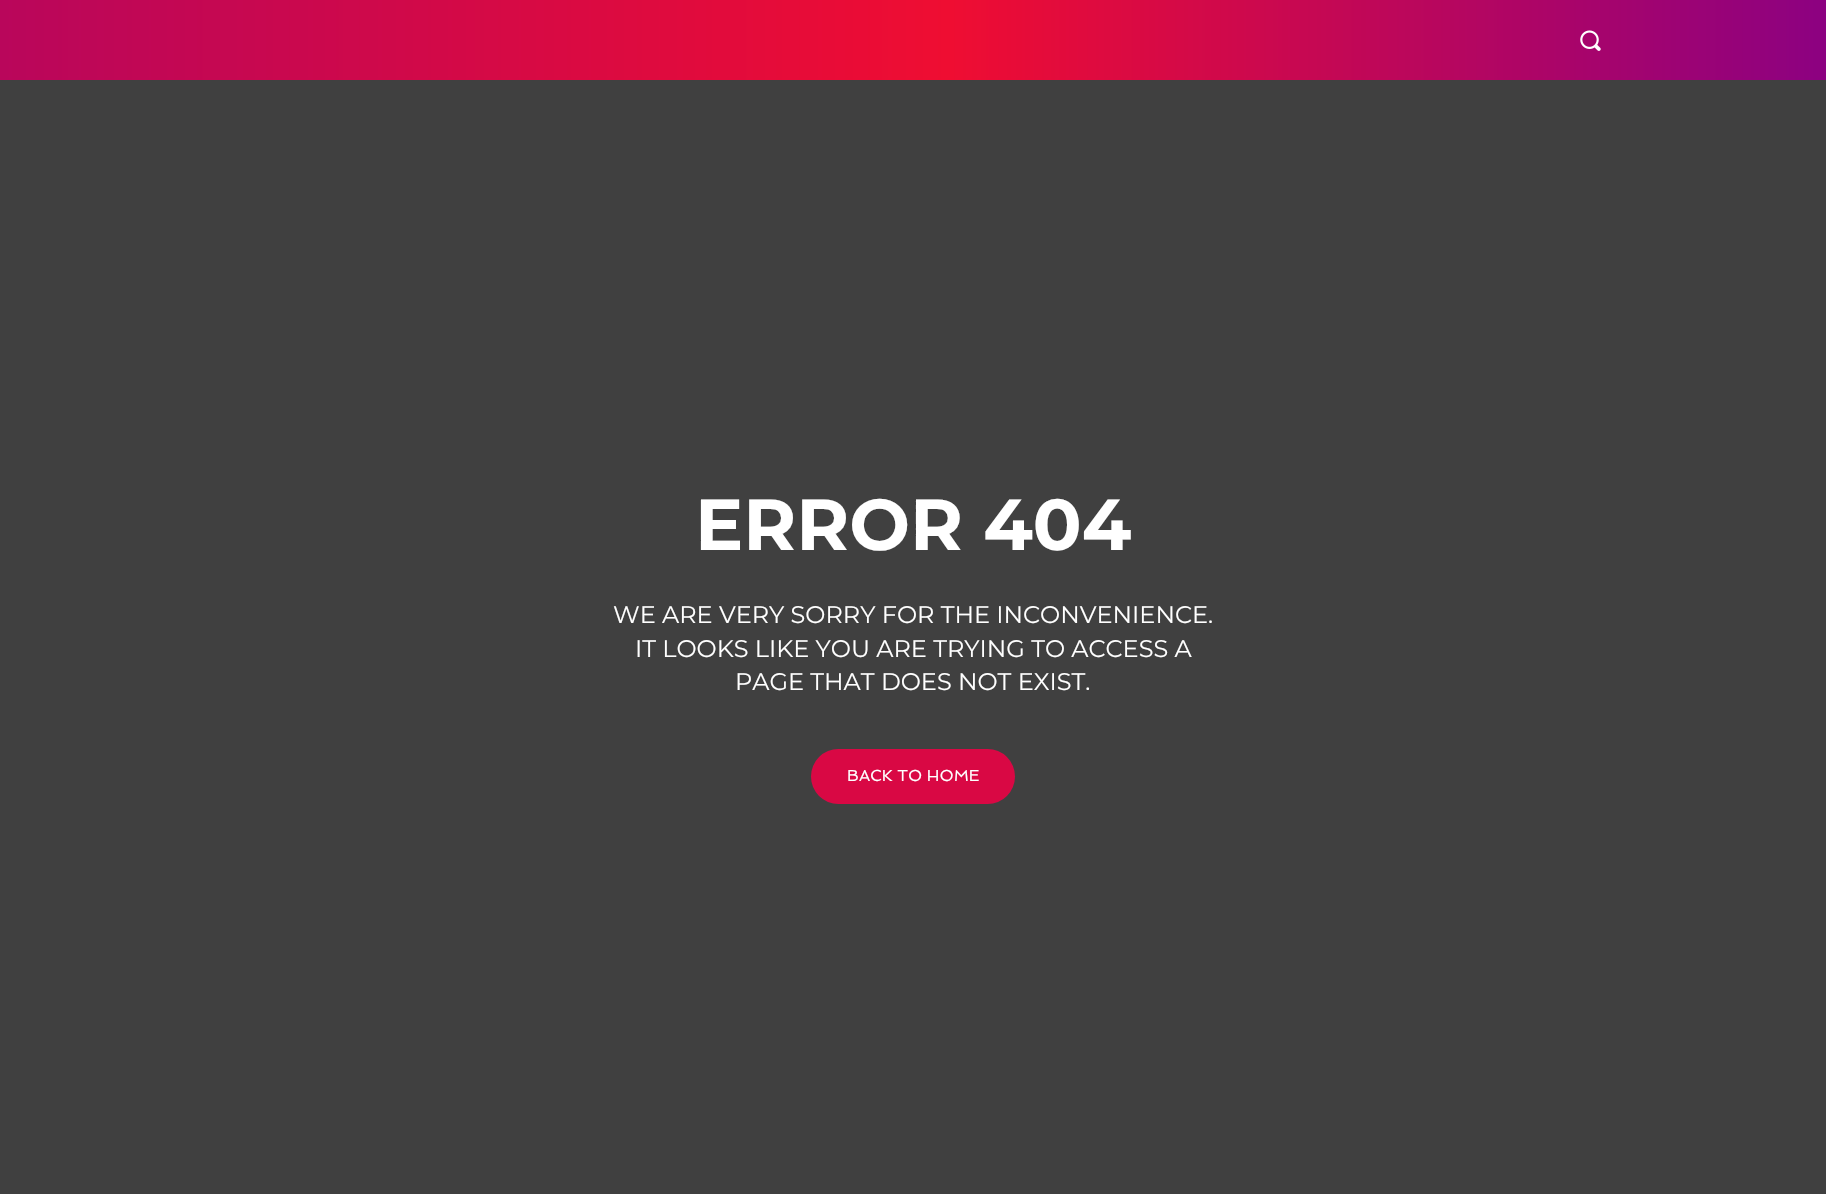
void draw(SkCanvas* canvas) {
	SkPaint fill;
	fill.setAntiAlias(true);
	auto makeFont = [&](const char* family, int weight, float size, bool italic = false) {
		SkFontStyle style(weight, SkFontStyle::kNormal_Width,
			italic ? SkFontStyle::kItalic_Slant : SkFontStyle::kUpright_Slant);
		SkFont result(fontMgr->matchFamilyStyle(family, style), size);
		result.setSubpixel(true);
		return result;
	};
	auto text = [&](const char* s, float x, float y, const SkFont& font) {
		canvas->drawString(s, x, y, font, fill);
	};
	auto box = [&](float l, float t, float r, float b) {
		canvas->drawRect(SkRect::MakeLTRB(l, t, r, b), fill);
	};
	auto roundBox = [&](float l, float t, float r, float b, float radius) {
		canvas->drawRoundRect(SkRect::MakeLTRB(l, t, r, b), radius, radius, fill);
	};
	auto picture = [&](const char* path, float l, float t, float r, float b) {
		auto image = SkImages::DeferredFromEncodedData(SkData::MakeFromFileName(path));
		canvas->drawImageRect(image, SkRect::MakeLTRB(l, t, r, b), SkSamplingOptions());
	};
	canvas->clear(0xFF404040);
	{
		const SkColor colors[] = {0xFF8C0181, 0xFFEF0D32, 0xFFB9065B};
		const float stops[] = {0, 0.48f, 1};
		const SkPoint ends[] = {{1826, 40}, {0, 40}};
		fill.setShader(SkGradientShader::MakeLinear(ends, colors, stops, 3, SkTileMode::kClamp));
		fill.setAlpha(255);
	}
	box(0, 0, 1826, 80);
	picture("image0.png", 1580, 30, 1601, 51);
	fill.setShader(nullptr);
	fill.setColor(0xFFD90844);
	roundBox(811, 749, 1015, 804, 27.5f);
	auto font1 = makeFont("Montserrat", 700, 72);
	fill.setColor(0xFFFFFFFF);
	text("ERROR 404", 695, 550, font1);
	auto font2 = makeFont("Montserrat", 400, 24);
	text("WE ARE VERY SORRY FOR THE INCONVENIENCE.", 613, 623, font2);
	text("IT LOOKS LIKE YOU ARE TRYING TO ACCESS A", 635, 657, font2);
	text("PAGE THAT DOES NOT EXIST.", 735, 690, font2);
	auto font3 = makeFont("Spinnaker", 400, 16);
	text("BACK TO HOME", 847, 781, font3);
}
